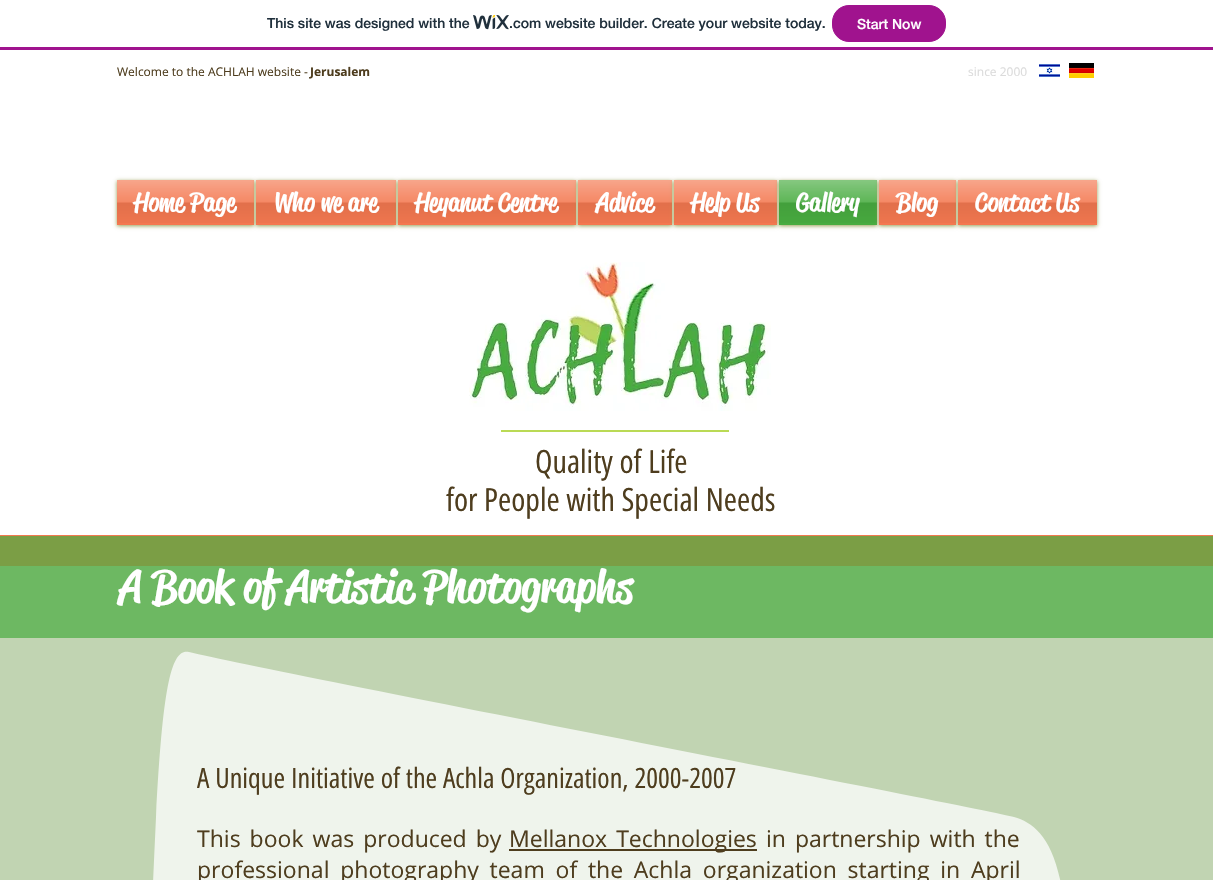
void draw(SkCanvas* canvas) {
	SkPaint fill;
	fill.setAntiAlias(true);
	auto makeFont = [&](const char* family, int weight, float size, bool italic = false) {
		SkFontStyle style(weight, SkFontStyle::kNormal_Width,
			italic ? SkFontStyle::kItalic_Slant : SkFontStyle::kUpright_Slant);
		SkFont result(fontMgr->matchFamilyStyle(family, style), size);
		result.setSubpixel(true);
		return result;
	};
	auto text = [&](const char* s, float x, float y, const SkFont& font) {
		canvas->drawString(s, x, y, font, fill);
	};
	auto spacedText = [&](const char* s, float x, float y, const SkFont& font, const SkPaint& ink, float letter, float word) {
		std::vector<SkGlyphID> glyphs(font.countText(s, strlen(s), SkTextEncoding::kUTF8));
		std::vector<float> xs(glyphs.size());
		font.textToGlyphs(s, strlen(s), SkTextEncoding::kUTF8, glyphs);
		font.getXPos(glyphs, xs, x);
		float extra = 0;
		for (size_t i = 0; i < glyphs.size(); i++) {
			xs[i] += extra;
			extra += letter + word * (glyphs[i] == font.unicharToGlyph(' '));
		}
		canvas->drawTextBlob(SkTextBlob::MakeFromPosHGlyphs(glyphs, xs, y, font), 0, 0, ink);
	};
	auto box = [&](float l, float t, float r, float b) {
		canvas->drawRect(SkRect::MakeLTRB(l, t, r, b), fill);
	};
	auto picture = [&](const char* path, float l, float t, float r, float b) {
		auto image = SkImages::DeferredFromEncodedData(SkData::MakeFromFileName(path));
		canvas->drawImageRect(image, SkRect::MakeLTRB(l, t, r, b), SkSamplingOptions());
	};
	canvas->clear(0xFFC1D4B2);
	fill.setColor(0xFFFFFFFF);
	box(0, 0, 1213, 47);
	fill.setColor(0xFFA0138E);
	box(0, 47, 1213, 50);
	picture("image0.png", 473, 15, 509, 30);
	canvas->drawRoundRect(SkRect::MakeLTRB(832.5f, 5.5f, 945.5f, 41.5f), 16.5f, 16.5f, fill);
	fill.setStyle(SkPaint::kStroke_Style);
	fill.setStrokeWidth(1);
	canvas->drawRoundRect(SkRect::MakeLTRB(832.5f, 5.5f, 945.5f, 41.5f), 16.5f, 16.5f, fill);
	fill.setStyle(SkPaint::kFill_Style);
	fill.setColor(0xFFFFFFFF);
	box(0, 50, 1213, 535);
	picture("image1.png", 1039, 64, 1060, 77);
	picture("image2.png", 1069, 63, 1094, 78);
	fill.setColor(0xFF979E51);
	fill.setMaskFilter(SkMaskFilter::MakeBlur(kNormal_SkBlurStyle, 2));
	canvas->drawRect(SkRect::MakeLTRB(117, 181, 254, 226), fill);
	fill.setMaskFilter(nullptr);
	fill.setColor(0xFFF47850);
	box(117, 180, 254, 225);
	picture("image3.png", 117, 180, 254, 223);
	fill.setColor(0xFF979E51);
	fill.setMaskFilter(SkMaskFilter::MakeBlur(kNormal_SkBlurStyle, 2));
	canvas->drawRect(SkRect::MakeLTRB(256, 181, 396, 226), fill);
	fill.setMaskFilter(nullptr);
	fill.setColor(0xFFF47850);
	box(256, 180, 396, 225);
	picture("image4.png", 256, 180, 396, 223);
	fill.setColor(0xFF979E51);
	fill.setMaskFilter(SkMaskFilter::MakeBlur(kNormal_SkBlurStyle, 2));
	canvas->drawRect(SkRect::MakeLTRB(398, 181, 576, 226), fill);
	fill.setMaskFilter(nullptr);
	fill.setColor(0xFFF47850);
	box(398, 180, 576, 225);
	picture("image5.png", 398, 180, 576, 223);
	fill.setColor(0xFF979E51);
	fill.setMaskFilter(SkMaskFilter::MakeBlur(kNormal_SkBlurStyle, 2));
	canvas->drawRect(SkRect::MakeLTRB(578, 181, 672, 226), fill);
	fill.setMaskFilter(nullptr);
	fill.setColor(0xFFF47850);
	box(578, 180, 672, 225);
	picture("image6.png", 578, 180, 672, 223);
	fill.setColor(0xFF979E51);
	fill.setMaskFilter(SkMaskFilter::MakeBlur(kNormal_SkBlurStyle, 2));
	canvas->drawRect(SkRect::MakeLTRB(674, 181, 777, 226), fill);
	fill.setMaskFilter(nullptr);
	fill.setColor(0xFFF47850);
	box(674, 180, 777, 225);
	picture("image7.png", 674, 180, 777, 223);
	fill.setColor(0xFF979E51);
	fill.setMaskFilter(SkMaskFilter::MakeBlur(kNormal_SkBlurStyle, 2));
	canvas->drawRect(SkRect::MakeLTRB(779, 181, 877, 226), fill);
	fill.setMaskFilter(nullptr);
	fill.setColor(0xFF48AC40);
	box(779, 180, 877, 225);
	picture("image8.png", 779, 180, 877, 223);
	fill.setColor(0xFF979E51);
	fill.setMaskFilter(SkMaskFilter::MakeBlur(kNormal_SkBlurStyle, 2));
	canvas->drawRect(SkRect::MakeLTRB(879, 181, 956, 226), fill);
	fill.setMaskFilter(nullptr);
	fill.setColor(0xFFF47850);
	box(879, 180, 956, 225);
	picture("image9.png", 879, 180, 956, 223);
	fill.setColor(0xFF979E51);
	fill.setMaskFilter(SkMaskFilter::MakeBlur(kNormal_SkBlurStyle, 2));
	canvas->drawRect(SkRect::MakeLTRB(958, 181, 1097, 226), fill);
	fill.setMaskFilter(nullptr);
	fill.setColor(0xFFF47850);
	box(958, 180, 1097, 225);
	picture("image10.png", 958, 180, 1097, 223);
	picture("image11.png", 469, 262, 771, 411);
	fill.setColor(0xFFBADA55);
	box(501, 430, 729, 432);
	fill.setColor(0xFFF17A50);
	box(0, 535, 1213, 566);
	fill.setColor(0xB348AC40);
	box(0, 536, 1213, 638);
	fill.setColor(0xFFEFF4EC);
	canvas->drawPath(SkPathBuilder().moveTo(189, 652).cubicTo(271, 672, 991, 810, 1014, 817).cubicTo(1038, 824, 1063, 844, 1067, 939).cubicTo(1069, 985, 1100, 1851, 1097, 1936).cubicTo(1093, 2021, 1084, 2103, 1058, 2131).cubicTo(1042, 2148, 252, 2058, 212, 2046).cubicTo(172, 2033, 112, 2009, 117, 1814).cubicTo(121, 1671, 142, 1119, 156, 817).cubicTo(163, 681, 172, 648, 189, 652).close().detach(), fill);
	fill.setColor(0xFF4E3D1E);
	box(509, 849, 757, 851);
	auto font1 = makeFont("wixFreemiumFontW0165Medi", 500, 14);
	fill.setColor(0xFF20303C);
	text("This site was designed with the", 267, 28, font1);
	text(".com website builder. Create your website today.", 509, 28, font1);
	fill.setColor(0xFFFFFFFF);
	text("Start Now", 857, 29, font1);
	auto font2 = makeFont("Open Sans", 400, 12);
	fill.setColor(0xFF4E3D1E);
	text("Welcome to the ACHLAH website -", 117, 76, font2);
	auto font3 = makeFont("Open Sans", 700, 12);
	text("Jerusalem", 310, 76, font3);
	fill.setColor(0xFFDBDBDB);
	text("since 2000", 968, 76, font2);
	auto font4 = makeFont("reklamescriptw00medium", 500, 26);
	fill.setColor(0xFFFFFFFF);
	text("Home Page", 134, 211, font4);
	text("Who we are", 274, 211, font4);
	text("Heyanut Centre", 415, 211, font4);
	text("Advice", 596, 211, font4);
	text("Help Us", 691, 211, font4);
	text("Gallery", 796, 211, font4);
	text("Blog", 896, 211, font4);
	text("Contact Us", 975, 211, font4);
	auto font5 = makeFont("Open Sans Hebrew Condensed", 400, 32);
	fill.setColor(0xFF4E3D1E);
	text("Quality of Life", 535, 473, font5);
	text("for People with Special Needs", 446, 511, font5);
	auto font6 = makeFont("reklamescriptw00medium", 500, 45);
	fill.setColor(0xFFFFFFFF);
	text("A Book of Artistic Photographs", 119, 602, font6);
	auto font7 = makeFont("Open Sans Hebrew Condensed", 400, 28);
	fill.setColor(0xFF4E3D1E);
	text("A Unique Initiative of the Achla Organization, 2000-2007", 197, 788, font7);
	auto font8 = makeFont("Open Sans", 400, 23);
	spacedText("This book was produced by", 197, 847, font8, fill, 0, 3);
	spacedText("Mellanox Technologies", 509, 847, font8, fill, 0, 3);
	spacedText("in partnership with the", 766, 847, font8, fill, 0, 3);
	spacedText("professional photography team of the Achla organization starting in April", 197, 878, font8, fill, 0, 4.75f);
}
